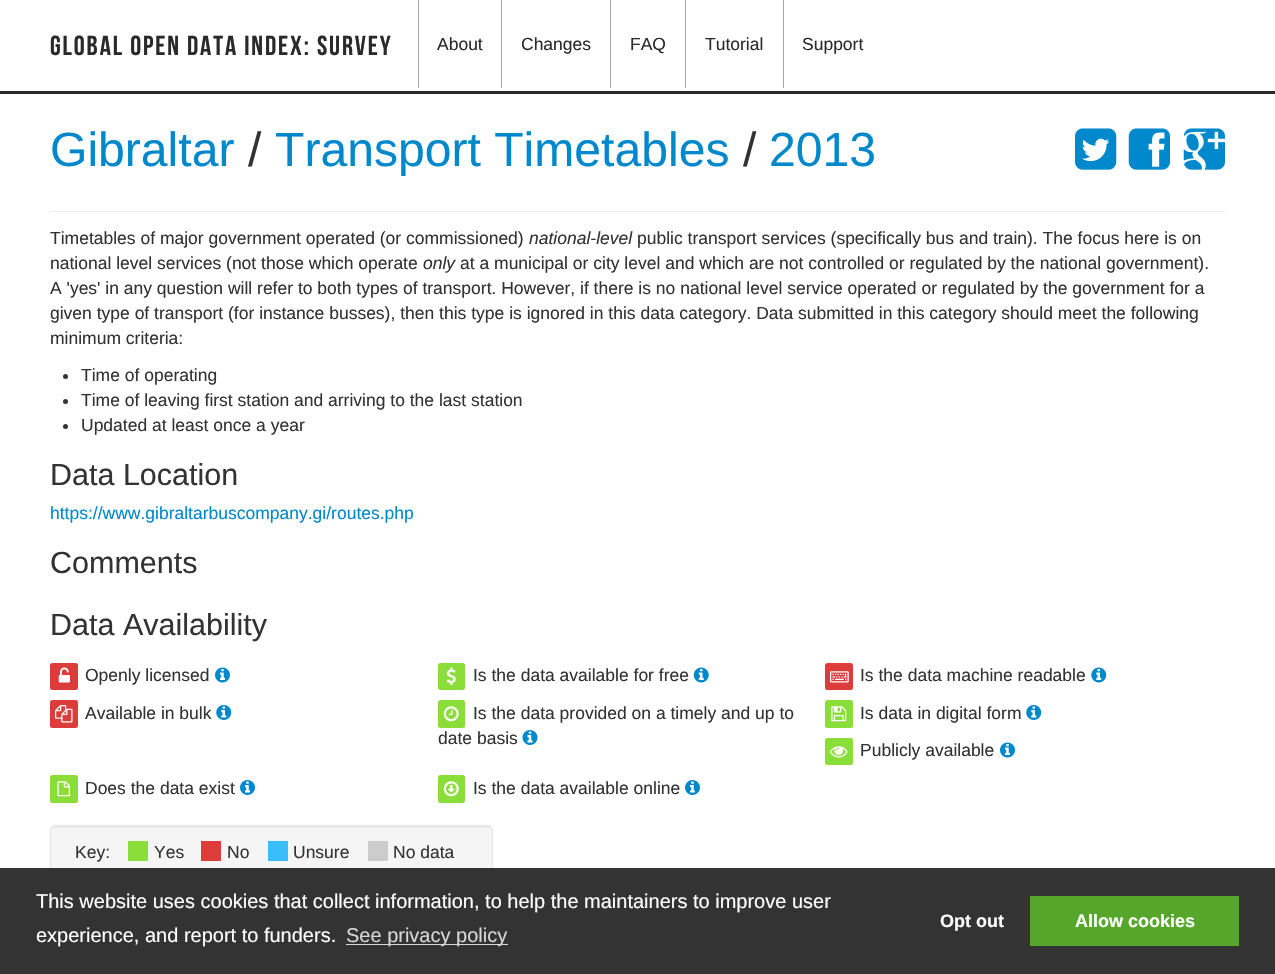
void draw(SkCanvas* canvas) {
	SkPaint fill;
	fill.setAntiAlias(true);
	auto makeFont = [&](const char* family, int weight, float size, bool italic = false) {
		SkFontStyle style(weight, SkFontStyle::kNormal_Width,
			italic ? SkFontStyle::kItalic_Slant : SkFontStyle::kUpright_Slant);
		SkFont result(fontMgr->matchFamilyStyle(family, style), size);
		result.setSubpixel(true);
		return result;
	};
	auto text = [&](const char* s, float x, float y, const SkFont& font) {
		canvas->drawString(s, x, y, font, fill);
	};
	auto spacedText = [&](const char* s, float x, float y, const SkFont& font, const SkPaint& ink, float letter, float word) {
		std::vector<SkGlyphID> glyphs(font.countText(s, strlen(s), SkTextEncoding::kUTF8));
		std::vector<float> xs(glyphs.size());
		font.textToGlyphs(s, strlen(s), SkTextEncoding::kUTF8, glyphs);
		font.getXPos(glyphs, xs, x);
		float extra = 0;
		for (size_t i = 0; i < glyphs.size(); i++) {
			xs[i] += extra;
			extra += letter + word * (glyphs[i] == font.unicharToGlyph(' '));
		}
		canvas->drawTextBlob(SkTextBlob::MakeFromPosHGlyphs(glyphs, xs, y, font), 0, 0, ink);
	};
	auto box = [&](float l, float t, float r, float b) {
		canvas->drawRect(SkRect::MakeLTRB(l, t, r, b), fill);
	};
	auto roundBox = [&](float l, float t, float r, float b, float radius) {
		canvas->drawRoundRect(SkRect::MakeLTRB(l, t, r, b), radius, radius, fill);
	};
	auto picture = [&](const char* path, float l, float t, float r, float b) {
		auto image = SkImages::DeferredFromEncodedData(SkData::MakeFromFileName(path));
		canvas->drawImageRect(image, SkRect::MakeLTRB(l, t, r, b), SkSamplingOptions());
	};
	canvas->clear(0xFFFFFFFF);
	fill.setColor(0xFF2B2A2A);
	box(0, 91, 1275, 94);
	fill.setColor(0xFFA7A9A4);
	box(418, 0, 419, 88);
	box(501, 0, 502, 88);
	box(610, 0, 611, 88);
	box(685, 0, 686, 88);
	box(783, 0, 784, 88);
	fill.setColor(0xFFEEEEEE);
	box(50, 211, 1225, 212);
	picture("image0.png", 1075, 128, 1117, 170);
	picture("image1.png", 1128, 128, 1170, 170);
	picture("image2.png", 1183, 128, 1225, 170);
	fill.setColor(0xFF333333);
	canvas->drawCircle(65.5f, 376.5f, 2.5f, fill);
	canvas->drawCircle(65.5f, 401.5f, 2.5f, fill);
	canvas->drawCircle(65.5f, 426.5f, 2.5f, fill);
	fill.setColor(0xFFDD3D3A);
	roundBox(50, 663, 78, 690, 2.5f);
	picture("image3.png", 58, 667, 70, 683);
	picture("image4.png", 215, 667, 230, 683);
	fill.setColor(0xFF8BDD3A);
	roundBox(438, 663, 465, 690, 2.5f);
	picture("image5.png", 446, 667, 456, 685);
	picture("image6.png", 693, 667, 709, 683);
	fill.setColor(0xFFDD3D3A);
	roundBox(825, 663, 853, 690, 2.5f);
	picture("image7.png", 830, 671, 849, 683);
	picture("image8.png", 1091, 667, 1107, 683);
	roundBox(50, 700, 78, 728, 2.5f);
	picture("image9.png", 55, 705, 73, 723);
	picture("image10.png", 216, 705, 232, 720);
	fill.setColor(0xFF8BDD3A);
	roundBox(438, 700, 465, 728, 2.5f);
	picture("image11.png", 443, 706, 459, 722);
	picture("image12.png", 522, 730, 538, 745);
	roundBox(825, 700, 853, 728, 2.5f);
	picture("image13.png", 831, 706, 847, 722);
	picture("image10.png", 1026, 705, 1042, 720);
	roundBox(825, 738, 853, 765, 2.5f);
	picture("image14.png", 830, 746, 848, 758);
	picture("image4.png", 1000, 742, 1015, 758);
	roundBox(50, 775, 78, 803, 2.5f);
	picture("image15.png", 57, 781, 70, 797);
	picture("image16.png", 240, 780, 255, 795);
	roundBox(438, 775, 465, 803, 2.5f);
	picture("image17.png", 443, 781, 459, 797);
	picture("image16.png", 685, 780, 700, 795);
	fill.setColor(0xFFF5F5F5);
	roundBox(50, 825, 493, 876, 5);
	fill.setColor(0xFFE9E9E9);
	canvas->drawPath(SkPathBuilder().moveTo(55, 828).lineTo(488, 828).cubicTo(490, 828, 491, 829, 491, 831).cubicTo(491, 828, 490, 826, 487, 826).lineTo(55, 826).lineTo(53, 827).lineTo(52, 828).lineTo(51, 831).cubicTo(51, 829, 53, 828, 55, 828).close().detach(), fill);
	fill.setStyle(SkPaint::kStroke_Style);
	fill.setStrokeWidth(1);
	fill.setColor(0xFFE3E3E3);
	canvas->drawRoundRect(SkRect::MakeLTRB(50.5f, 825.5f, 492.5f, 875.5f), 4.5f, 4.5f, fill);
	fill.setStyle(SkPaint::kFill_Style);
	fill.setColor(0xFF8BDD3A);
	box(128, 841, 148, 861);
	fill.setColor(0xFFDD3D3A);
	box(201, 841, 221, 861);
	fill.setColor(0xFF39BEF9);
	box(268, 841, 288, 861);
	fill.setColor(0xFFCCCCCC);
	box(368, 841, 388, 861);
	fill.setColor(0xFF333333);
	box(0, 868, 1275, 974);
	fill.setColor(0xFFD6D6D6);
	box(346, 944, 508, 945);
	fill.setColor(0xFF56A62B);
	box(1030, 896, 1239, 946);
	auto font1 = makeFont("Bebas Neue", 400, 27.5f);
	fill.setColor(0xFF2B2A2A);
	spacedText("Global Open Data Index: Survey", 50, 55, font1, fill, 1.9f, 0);
	auto font2 = makeFont("Liberation Sans", 400, 17.5f);
	text("About", 437, 50, font2);
	text("Changes", 521, 50, font2);
	text("FAQ", 630, 50, font2);
	text("Tutorial", 705, 50, font2);
	text("Support", 802, 50, font2);
	auto font3 = makeFont("Liberation Sans", 400, 48.1f);
	fill.setColor(0xFF0088CC);
	text("Gibraltar", 50, 166, font3);
	fill.setColor(0xFF333333);
	text("/", 248, 166, font3);
	fill.setColor(0xFF0088CC);
	text("Transport Timetables", 275, 166, font3);
	fill.setColor(0xFF333333);
	text("/", 743, 166, font3);
	fill.setColor(0xFF0088CC);
	text("2013", 769, 166, font3);
	fill.setColor(0xFF333333);
	text("Timetables of major government operated (or commissioned)", 50, 244, font2);
	auto font4 = makeFont("Liberation Sans", 400, 17.5f, true);
	text("national-level", 529, 244, font4);
	text("public transport services (specifically bus and train). The focus here is on", 637, 244, font2);
	text("national level services (not those which operate", 50, 269, font2);
	text("only", 423, 269, font4);
	text("at a municipal or city level and which are not controlled or regulated by the national government).", 460, 269, font2);
	text("A 'yes' in any question will refer to both types of transport. However, if there is no national level service operated or regulated by the government for a", 50, 294, font2);
	text("given type of transport (for instance busses), then this type is ignored in this data category. Data submitted in this category should meet the following", 50, 319, font2);
	text("minimum criteria:", 50, 344, font2);
	text("Time of operating", 81, 381, font2);
	text("Time of leaving first station and arriving to the last station", 81, 406, font2);
	text("Updated at least once a year", 81, 431, font2);
	auto font5 = makeFont("Liberation Sans", 400, 30.5f);
	text("Data Location", 50, 485, font5);
	fill.setColor(0xFF0088CC);
	text("https://www.gibraltarbuscompany.gi/routes.php", 50, 519, font2);
	fill.setColor(0xFF333333);
	text("Comments", 50, 573, font5);
	text("Data Availability", 50, 635, font5);
	text("Openly licensed", 85, 681, font2);
	text("Is the data available for free", 473, 681, font2);
	text("Is the data machine readable", 860, 681, font2);
	text("Available in bulk", 85, 719, font2);
	text("Is the data provided on a timely and up to", 473, 719, font2);
	text("date basis", 438, 744, font2);
	text("Is data in digital form", 860, 719, font2);
	text("Publicly available", 860, 756, font2);
	text("Does the data exist", 85, 794, font2);
	text("Is the data available online", 473, 794, font2);
	text("Key:", 75, 858, font2);
	text("Yes", 154, 858, font2);
	text("No", 227, 858, font2);
	text("Unsure", 293, 858, font2);
	text("No data", 393, 858, font2);
	auto font6 = makeFont("Liberation Sans", 400, 20);
	fill.setColor(0xFFFFFFFF);
	text("This website uses cookies that collect information, to help the maintainers to improve user", 36, 908, font6);
	text("experience, and report to funders.", 36, 942, font6);
	fill.setColor(0xFFD6D6D6);
	text("See privacy policy", 346, 942, font6);
	auto font7 = makeFont("Liberation Sans", 700, 18);
	fill.setColor(0xFFFFFFFF);
	text("Opt out", 940, 927, font7);
	text("Allow cookies", 1075, 927, font7);
}
